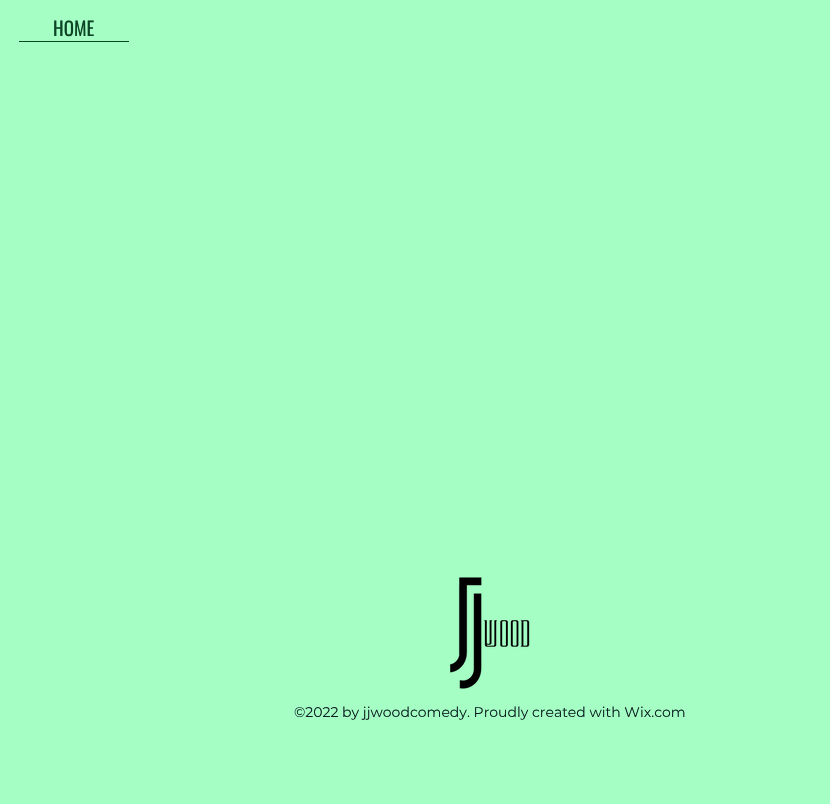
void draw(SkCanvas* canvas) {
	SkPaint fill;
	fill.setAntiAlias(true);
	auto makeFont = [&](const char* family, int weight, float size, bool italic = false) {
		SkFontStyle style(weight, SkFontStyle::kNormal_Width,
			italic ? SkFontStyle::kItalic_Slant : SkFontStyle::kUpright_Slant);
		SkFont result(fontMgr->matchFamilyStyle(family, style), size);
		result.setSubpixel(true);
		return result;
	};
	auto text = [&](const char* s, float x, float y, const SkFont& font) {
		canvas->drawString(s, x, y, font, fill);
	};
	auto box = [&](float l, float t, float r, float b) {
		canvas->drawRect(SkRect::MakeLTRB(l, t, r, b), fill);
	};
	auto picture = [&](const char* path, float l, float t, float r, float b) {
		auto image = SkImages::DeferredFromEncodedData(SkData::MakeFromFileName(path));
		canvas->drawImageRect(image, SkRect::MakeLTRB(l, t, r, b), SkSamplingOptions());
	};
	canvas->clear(0xFFA5FFC5);
	fill.setColor(0xFF0C4426);
	box(19, 41, 129, 42);
	picture("image0.png", 450, 577, 530, 689);
	auto font1 = makeFont("Oswald", 400, 19);
	text("HOME", 53, 36, font1);
	auto font2 = makeFont("Montserrat", 400, 14);
	fill.setColor(0xFF0D2123);
	text("©2022 by jjwoodcomedy. Proudly created with Wix.com", 294, 717, font2);
}
